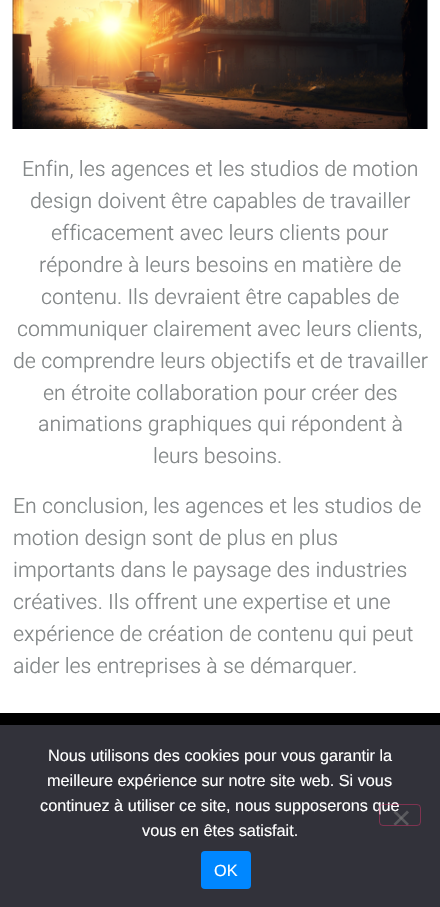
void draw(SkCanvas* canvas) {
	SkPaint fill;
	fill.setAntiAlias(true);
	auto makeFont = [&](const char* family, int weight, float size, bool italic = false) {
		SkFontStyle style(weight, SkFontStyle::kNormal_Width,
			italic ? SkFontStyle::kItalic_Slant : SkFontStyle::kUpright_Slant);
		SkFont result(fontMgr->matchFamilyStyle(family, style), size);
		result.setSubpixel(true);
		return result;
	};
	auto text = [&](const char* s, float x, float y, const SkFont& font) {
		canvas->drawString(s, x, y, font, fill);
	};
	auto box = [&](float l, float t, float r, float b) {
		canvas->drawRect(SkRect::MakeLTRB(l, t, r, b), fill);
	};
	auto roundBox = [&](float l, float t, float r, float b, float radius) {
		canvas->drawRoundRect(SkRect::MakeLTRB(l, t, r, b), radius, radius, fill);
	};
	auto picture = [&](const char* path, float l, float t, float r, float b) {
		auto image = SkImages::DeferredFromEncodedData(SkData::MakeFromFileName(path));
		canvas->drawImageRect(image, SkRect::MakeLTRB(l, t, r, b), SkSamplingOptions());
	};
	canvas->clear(0xFFFFFFFF);
	picture("image0.png", 12, 0, 428, 129);
	fill.setColor(0xFF000000);
	box(0, 713, 440, 725);
	fill.setColor(0xFF32323A);
	box(0, 725, 440, 907);
	fill.setColor(0xFF0087FF);
	roundBox(201, 851, 251, 889, 4);
	auto font1 = makeFont("Heebo", 300, 21.25f);
	fill.setColor(0xFF848889);
	text("Enfin, les agences et les studios de motion", 22, 176, font1);
	text("design doivent être capables de travailler", 30, 208, font1);
	text("efficacement avec leurs clients pour", 51, 240, font1);
	text("répondre à leurs besoins en matière de", 39, 272, font1);
	text("contenu. Ils devraient être capables de", 41, 304, font1);
	text("communiquer clairement avec leurs clients,", 17, 336, font1);
	text("de comprendre leurs objectifs et de travailler", 13, 368, font1);
	text("en étroite collaboration pour créer des", 43, 400, font1);
	text("animations graphiques qui répondent à", 38, 431, font1);
	text("leurs besoins.", 153, 463, font1);
	text("En conclusion, les agences et les studios de", 13, 513, font1);
	text("motion design sont de plus en plus", 13, 545, font1);
	text("importants dans le paysage des industries", 13, 577, font1);
	text("créatives. Ils offrent une expertise et une", 13, 609, font1);
	text("expérience de création de contenu qui peut", 13, 641, font1);
	text("aider les entreprises à se démarquer", 13, 673, font1);
	auto font2 = makeFont("Heebo", 300, 21.25f, true);
	text(".", 352, 673, font2);
	auto font3 = makeFont("Liberation Sans", 400, 16.25f);
	fill.setColor(0xFFFFFFFF);
	text("Nous utilisons des cookies pour vous garantir la", 48, 761, font3);
	text("meilleure expérience sur notre site web. Si vous", 47, 786, font3);
	text("continuez à utiliser ce site, nous supposerons que", 40, 811, font3);
	text("vous en êtes satisfait.", 142, 836, font3);
	fill.setStyle(SkPaint::kStroke_Style);
	fill.setStrokeWidth(1);
	fill.setColor(0x80CC3366);
	canvas->drawRoundRect(SkRect::MakeLTRB(379.5f, 804.5f, 420.5f, 825.5f), 3.5f, 3.5f, fill);
	fill.setStyle(SkPaint::kFill_Style);
	fill.setColor(0xFF59595D);
	canvas->drawPath(SkPathBuilder().moveTo(407, 810.5f).lineTo(409, 812.5f).lineTo(395.5f, 825.5f).lineTo(393.5f, 824).close().detach(), fill);
	fill.setColor(0x80808080);
	canvas->drawPath(SkPathBuilder().moveTo(393.5f, 812.5f).lineTo(395.5f, 810.5f).lineTo(409, 824).lineTo(407, 825.5f).close().detach(), fill);
	fill.setColor(0xFFFFFFFF);
	text("OK", 214, 876, font3);
}
